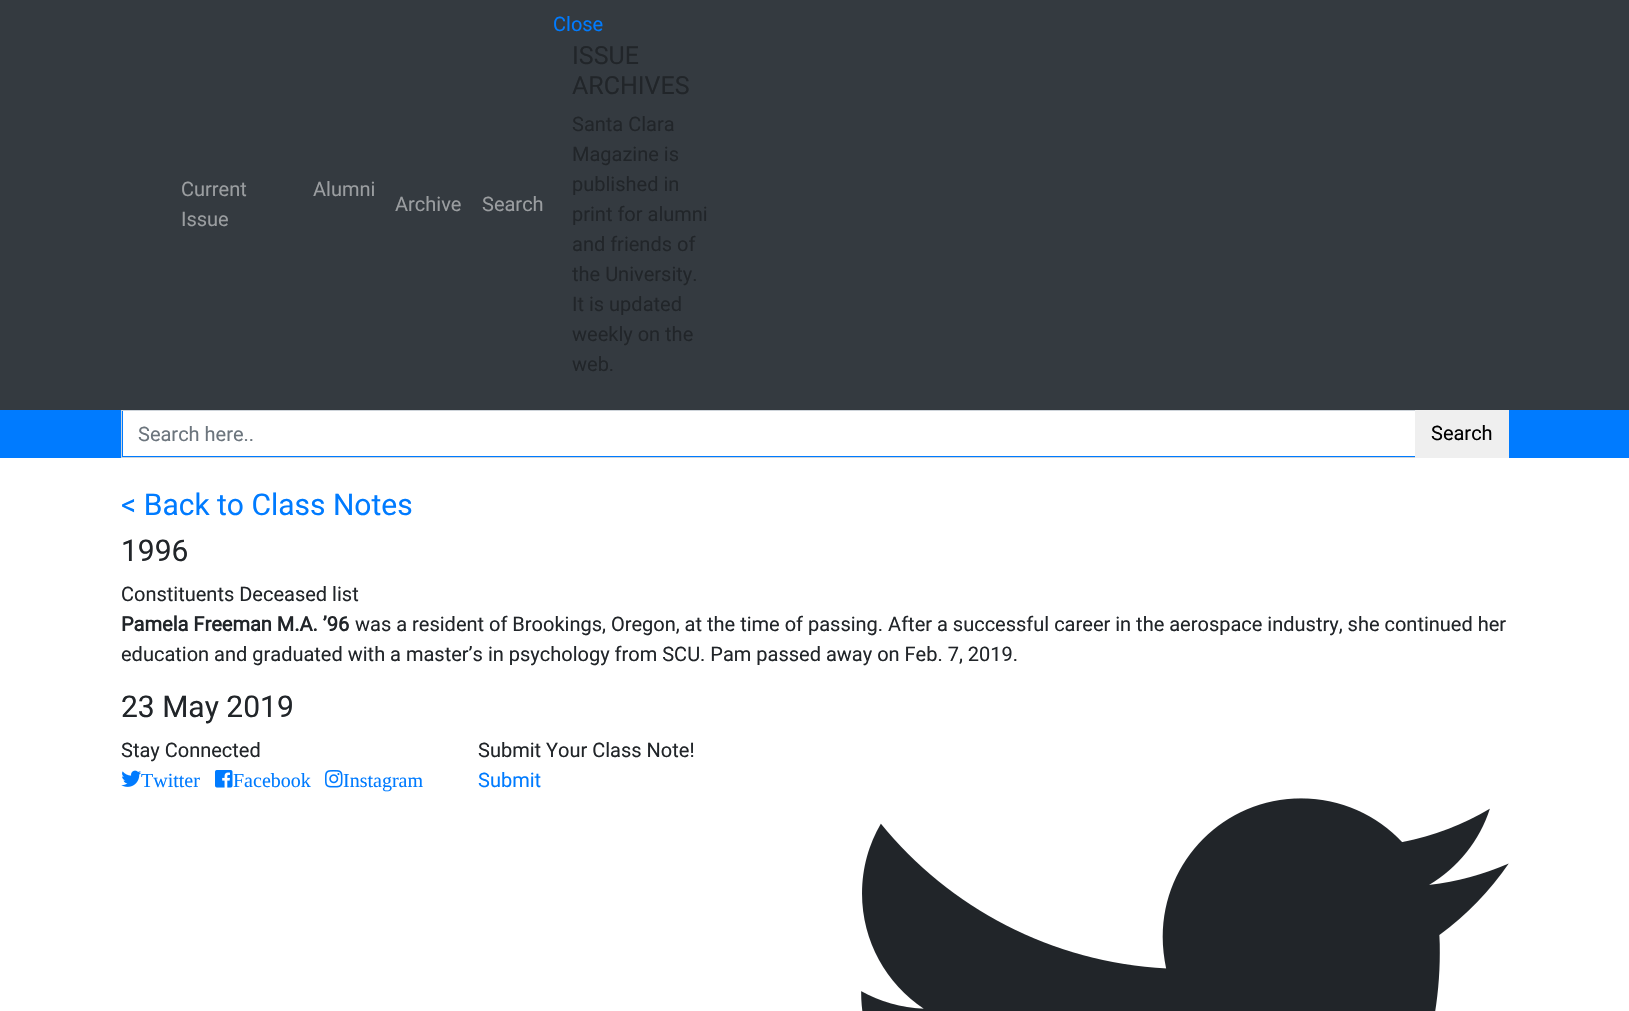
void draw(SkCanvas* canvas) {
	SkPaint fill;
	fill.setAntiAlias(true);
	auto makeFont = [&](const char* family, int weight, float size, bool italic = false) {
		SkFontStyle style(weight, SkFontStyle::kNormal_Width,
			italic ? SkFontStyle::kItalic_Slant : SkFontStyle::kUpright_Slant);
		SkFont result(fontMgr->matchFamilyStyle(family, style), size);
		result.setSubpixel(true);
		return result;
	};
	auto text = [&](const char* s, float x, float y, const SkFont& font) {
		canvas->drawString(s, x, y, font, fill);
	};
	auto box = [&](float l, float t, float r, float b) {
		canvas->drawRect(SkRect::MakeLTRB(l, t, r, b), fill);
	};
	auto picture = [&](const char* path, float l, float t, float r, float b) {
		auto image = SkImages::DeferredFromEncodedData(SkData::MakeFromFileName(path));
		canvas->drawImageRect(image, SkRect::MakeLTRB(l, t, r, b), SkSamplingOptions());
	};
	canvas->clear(0xFFFFFFFF);
	fill.setColor(0xFF343A40);
	box(0, 0, 1629, 410);
	fill.setColor(0xFF007BFF);
	box(0, 410, 1629, 458);
	fill.setColor(0xFFFFFFFF);
	box(123, 411, 1415, 456);
	fill.setStyle(SkPaint::kStroke_Style);
	fill.setStrokeWidth(1);
	fill.setColor(0xFFCED4DA);
	canvas->drawRect(SkRect::MakeLTRB(121.5f, 410.5f, 1415.5f, 457.5f), fill);
	fill.setStyle(SkPaint::kFill_Style);
	fill.setColor(0xFFEFEFEF);
	box(1415, 410, 1509, 458);
	picture("image0.png", 121, 770, 142, 787);
	picture("image1.png", 215, 770, 233, 788);
	picture("image2.png", 325, 770, 343, 788);
	picture("image3.png", 861, 798, 1509, 1011);
	auto font1 = makeFont("Roboto", 400, 20);
	fill.setColor(0xFF9A9DA0);
	text("Current", 181, 196, font1);
	text("Issue", 181, 226, font1);
	text("Alumni", 313, 196, font1);
	text("Archive", 395, 211, font1);
	text("Search", 482, 211, font1);
	fill.setColor(0xFF007BFF);
	text("Close", 553, 31, font1);
	auto font2 = makeFont("Roboto", 400, 25);
	fill.setColor(0xFF212529);
	text("ISSUE", 572, 64, font2);
	text("ARCHIVES", 572, 94, font2);
	text("Santa Clara", 572, 131, font1);
	text("Magazine is", 572, 161, font1);
	text("published in", 572, 191, font1);
	text("print for alumni", 572, 221, font1);
	text("and friends of", 572, 251, font1);
	text("the University.", 572, 281, font1);
	text("It is updated", 572, 311, font1);
	text("weekly on the", 572, 341, font1);
	text("web.", 572, 371, font1);
	fill.setColor(0xFF6C757D);
	text("Search here..", 138, 441, font1);
	fill.setColor(0xFF000000);
	text("Search", 1431, 440, font1);
	auto font3 = makeFont("Roboto", 400, 30);
	fill.setColor(0xFF007BFF);
	text("< Back to Class Notes", 121, 515, font3);
	fill.setColor(0xFF212529);
	text("1996", 121, 561, font3);
	text("Constituents Deceased list", 121, 601, font1);
	auto font4 = makeFont("Roboto", 700, 20);
	text("Pamela Freeman M.A. ’96", 121, 631, font4);
	text("was a resident of Brookings, Oregon, at the time of passing. After a successful career in the aerospace industry, she continued her", 355, 631, font1);
	text("education and graduated with a master’s in psychology from SCU. Pam passed away on Feb. 7, 2019.", 121, 661, font1);
	text("23 May 2019", 121, 717, font3);
	text("Stay Connected", 121, 757, font1);
	auto font5 = makeFont("Liberation Serif", 400, 20);
	fill.setColor(0xFF007BFF);
	text("Twitter", 141, 787, font5);
	text("Facebook", 233, 787, font5);
	text("Instagram", 343, 787, font5);
	fill.setColor(0xFF212529);
	text("Submit Your Class Note!", 478, 757, font1);
	fill.setColor(0xFF007BFF);
	text("Submit", 478, 787, font1);
}
